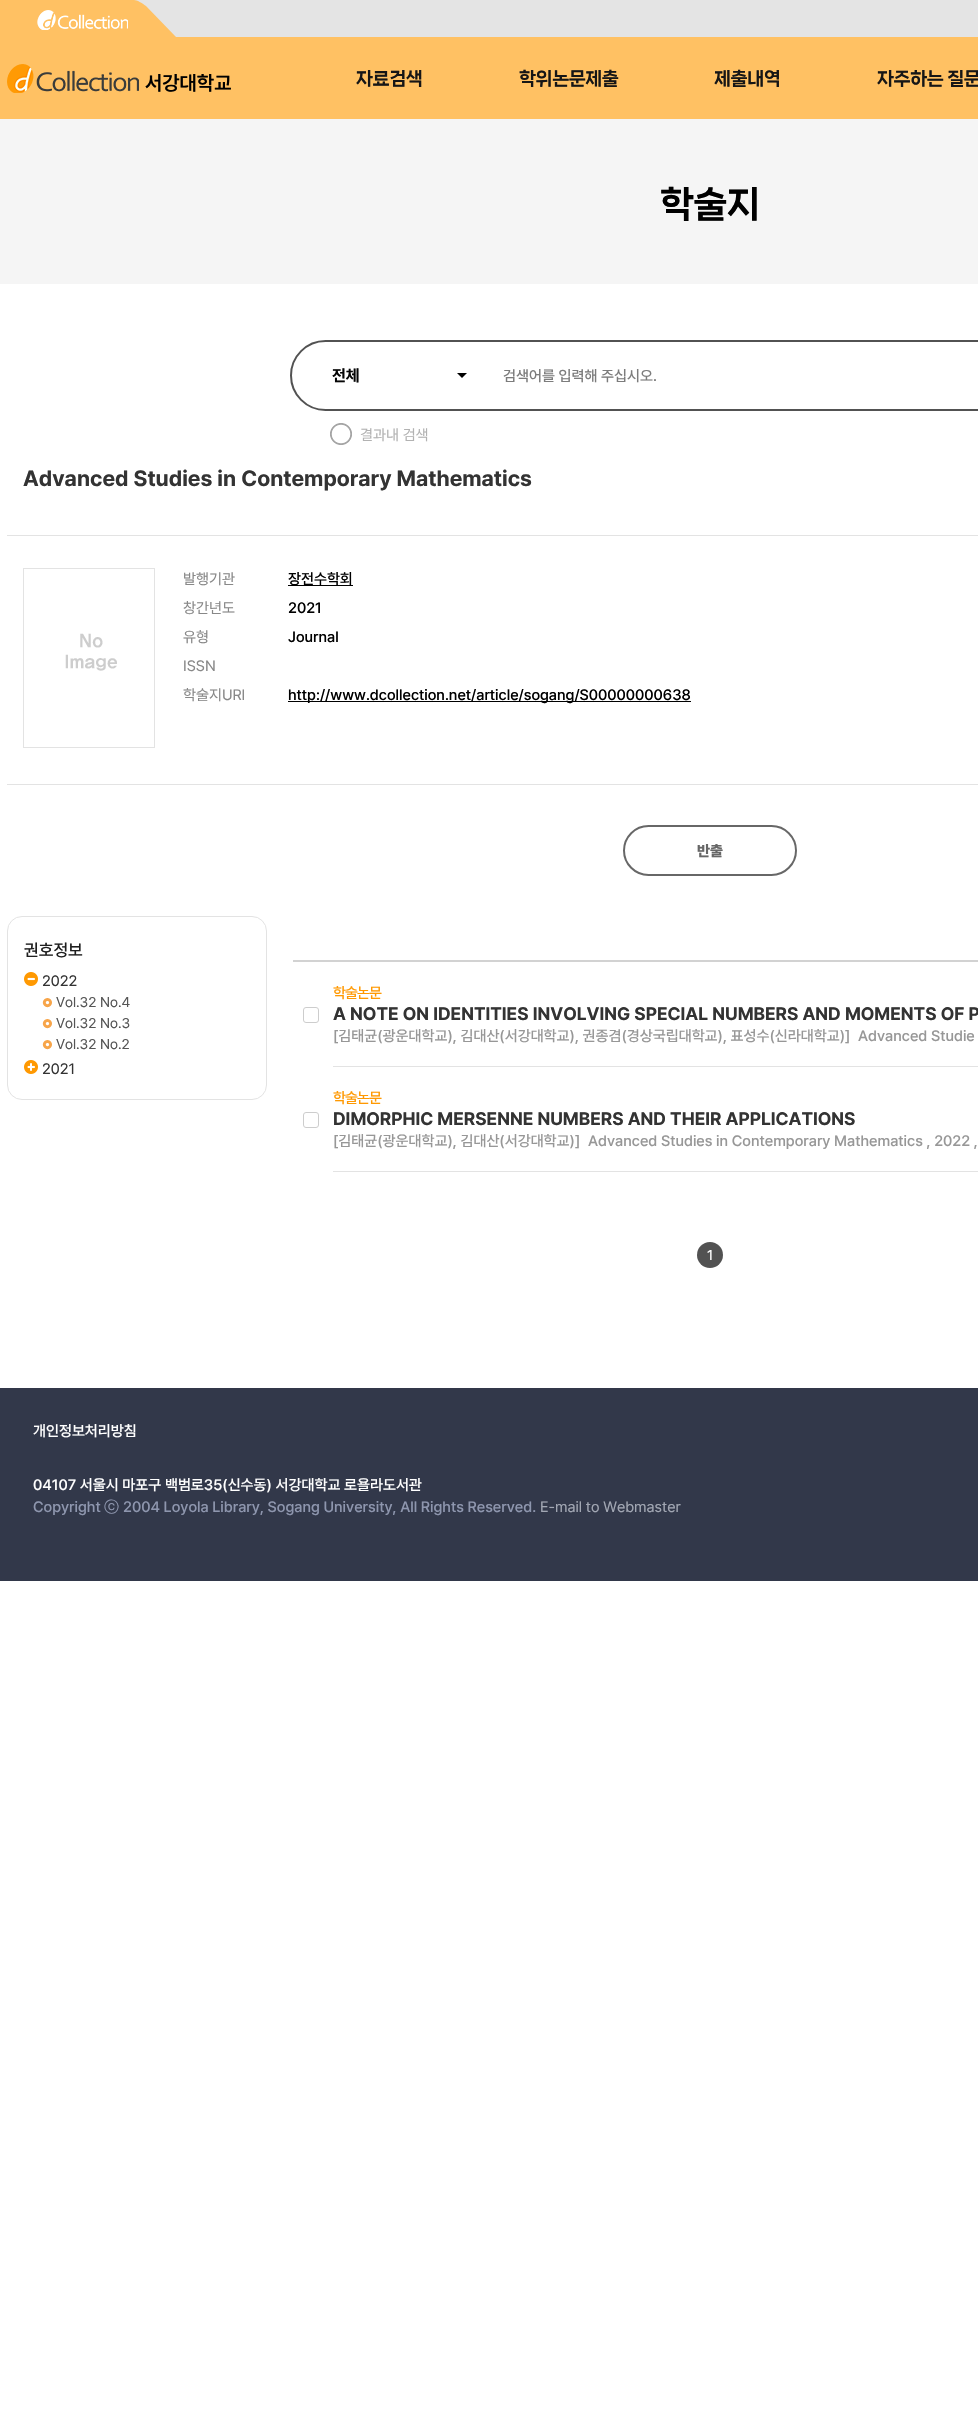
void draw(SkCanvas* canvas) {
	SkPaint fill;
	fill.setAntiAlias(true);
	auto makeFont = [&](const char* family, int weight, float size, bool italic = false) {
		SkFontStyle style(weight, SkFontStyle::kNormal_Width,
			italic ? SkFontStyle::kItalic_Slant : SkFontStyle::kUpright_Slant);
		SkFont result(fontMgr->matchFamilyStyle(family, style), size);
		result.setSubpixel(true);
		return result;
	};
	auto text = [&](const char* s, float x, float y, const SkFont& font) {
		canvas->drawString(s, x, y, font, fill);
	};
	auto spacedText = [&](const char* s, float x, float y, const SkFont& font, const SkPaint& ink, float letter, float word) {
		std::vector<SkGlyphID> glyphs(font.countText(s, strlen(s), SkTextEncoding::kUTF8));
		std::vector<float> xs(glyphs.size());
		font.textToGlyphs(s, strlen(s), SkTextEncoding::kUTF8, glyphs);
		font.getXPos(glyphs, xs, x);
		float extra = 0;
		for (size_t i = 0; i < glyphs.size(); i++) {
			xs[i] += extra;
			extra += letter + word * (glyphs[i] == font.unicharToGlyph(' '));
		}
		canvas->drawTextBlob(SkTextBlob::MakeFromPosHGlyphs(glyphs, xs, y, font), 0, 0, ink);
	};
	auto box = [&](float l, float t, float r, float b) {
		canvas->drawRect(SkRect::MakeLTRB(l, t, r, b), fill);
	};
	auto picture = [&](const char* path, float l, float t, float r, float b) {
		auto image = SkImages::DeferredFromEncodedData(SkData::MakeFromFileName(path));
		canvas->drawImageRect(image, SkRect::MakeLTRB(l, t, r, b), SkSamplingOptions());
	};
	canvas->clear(0xFFFFFFFF);
	fill.setColor(0xFFE4E4E4);
	box(134, 0, 978, 37);
	fill.setColor(0xFFFFC163);
	box(0, 11, 26, 37);
	canvas->drawPath(SkPathBuilder().moveTo(-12, 0).lineTo(134, 0).cubicTo(137, 0, 142, 3, 146, 6).lineTo(176, 37).lineTo(26, 37).close().detach(), fill);
	picture("image0.png", 37, 10, 128, 30);
	box(0, 37, 978, 119);
	picture("image1.png", 7, 64, 139, 93);
	fill.setColor(0xFFF5F5F5);
	box(0, 119, 978, 284);
	fill.setStyle(SkPaint::kStroke_Style);
	fill.setStrokeWidth(2);
	fill.setColor(0xFF525252);
	canvas->drawRoundRect(SkRect::MakeLTRB(291, 341, 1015, 410), 34.5f, 34.5f, fill);
	picture("image2.png", 457, 373, 467, 378);
	picture("image3.png", 330, 423, 352, 445);
	fill.setStyle(SkPaint::kFill_Style);
	fill.setColor(0xFFE3E3E3);
	box(7, 535, 978, 536);
	box(7, 784, 978, 785);
	fill.setStyle(SkPaint::kStroke_Style);
	fill.setStrokeWidth(1);
	canvas->drawRect(SkRect::MakeLTRB(23.5f, 568.5f, 154.5f, 747.5f), fill);
	picture("image4.png", 65, 633, 117, 671);
	fill.setStyle(SkPaint::kFill_Style);
	fill.setColor(0xFF000000);
	box(288, 585, 353, 586);
	box(288, 701, 691, 702);
	fill.setStyle(SkPaint::kStroke_Style);
	fill.setStrokeWidth(2);
	fill.setColor(0xFF676767);
	canvas->drawRoundRect(SkRect::MakeLTRB(624, 826, 796, 875), 24.5f, 24.5f, fill);
	fill.setStrokeWidth(1);
	fill.setColor(0xFFE3E3E3);
	canvas->drawRoundRect(SkRect::MakeLTRB(7.5f, 916.5f, 266.5f, 1099.5f), 14.5f, 14.5f, fill);
	picture("image5.png", 24, 972, 38, 986);
	picture("image6.png", 42, 998, 52, 1008);
	picture("image6.png", 42, 1019, 52, 1029);
	picture("image6.png", 42, 1040, 52, 1050);
	picture("image7.png", 24, 1060, 38, 1074);
	fill.setStyle(SkPaint::kFill_Style);
	fill.setColor(0xFFD2D2D2);
	box(293, 960, 978, 962);
	fill.setColor(0xFFE3E3E3);
	box(333, 1066, 978, 1067);
	fill.setStyle(SkPaint::kStroke_Style);
	fill.setColor(0xFFCDCDCD);
	canvas->drawRoundRect(SkRect::MakeLTRB(303.5f, 1007.5f, 318.5f, 1022.5f), 2.5f, 2.5f, fill);
	fill.setStyle(SkPaint::kFill_Style);
	fill.setColor(0xFFE3E3E3);
	box(333, 1171, 978, 1172);
	fill.setStyle(SkPaint::kStroke_Style);
	fill.setColor(0xFFCDCDCD);
	canvas->drawRoundRect(SkRect::MakeLTRB(303.5f, 1112.5f, 318.5f, 1127.5f), 2.5f, 2.5f, fill);
	fill.setStyle(SkPaint::kFill_Style);
	fill.setColor(0xFF525252);
	canvas->drawCircle(710, 1255, 13, fill);
	fill.setColor(0xFF32384A);
	box(0, 1388, 978, 1581);
	auto font1 = makeFont("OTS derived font", 600, 20);
	fill.setColor(0xFF000000);
	text("서강대학교", 145, 90, font1);
	auto font2 = makeFont("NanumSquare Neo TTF", 800, 18);
	fill.setColor(0xFF161616);
	spacedText("자료검색", 356, 84, font2, fill, -0.5f, 0);
	spacedText("학위논문제출", 519, 84, font2, fill, -0.5f, 0);
	spacedText("제출내역", 714, 84, font2, fill, -0.5f, 0);
	spacedText("자주하는 질문", 877, 84, font2, fill, -0.5f, 0);
	auto font3 = makeFont("NanumSquare Neo TTF", 800, 36);
	fill.setColor(0xFF000000);
	spacedText("학술지", 660, 215, font3, fill, -1, 0);
	auto font4 = makeFont("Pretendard", 700, 16);
	fill.setColor(0xFF060606);
	text("전체", 332, 381, font4);
	auto font5 = makeFont("OTS derived font", 500, 15);
	fill.setColor(0xFF7C7C7C);
	text("검색어를 입력해 주십시오.", 503, 381, font5);
	auto font6 = makeFont("OTS derived font", 400, 15);
	fill.setColor(0xFFB2B2B2);
	text("결과내 검색", 360, 440, font6);
	auto font7 = makeFont("Pretendard", 700, 22);
	fill.setColor(0xFF333333);
	text("Advanced Studies in Contemporary Mathematics", 23, 486, font7);
	fill.setColor(0xFF888888);
	text("발행기관", 183, 584, font6);
	fill.setColor(0xFF000000);
	text("장전수학회", 288, 584, font5);
	fill.setColor(0xFF888888);
	text("창간년도", 183, 613, font6);
	fill.setColor(0xFF000000);
	text("2021", 288, 613, font5);
	fill.setColor(0xFF888888);
	text("유형", 183, 642, font6);
	fill.setColor(0xFF000000);
	text("Journal", 288, 642, font5);
	fill.setColor(0xFF888888);
	text("ISSN", 183, 671, font6);
	text("학술지URI", 183, 700, font6);
	fill.setColor(0xFF000000);
	text("http://www.dcollection.net/article/sogang/S00000000638", 288, 700, font5);
	auto font8 = makeFont("Pretendard", 800, 15);
	fill.setColor(0xFF676767);
	text("반출", 697, 856, font8);
	auto font9 = makeFont("OTS derived font", 500, 17);
	fill.setColor(0xFF1E1E1E);
	text("권호정보", 24, 956, font9);
	fill.setColor(0xFF333333);
	text("2022", 42, 986, font6);
	auto font10 = makeFont("OTS derived font", 400, 14);
	fill.setColor(0xFF555555);
	text("Vol.32 No.4", 56, 1007, font10);
	text("Vol.32 No.3", 56, 1028, font10);
	text("Vol.32 No.2", 56, 1049, font10);
	fill.setColor(0xFF333333);
	text("2021", 42, 1074, font6);
	fill.setColor(0xFFFF9902);
	spacedText("학술논문", 333, 998, font5, fill, -1, 0);
	auto font11 = makeFont("Pretendard", 700, 18);
	fill.setColor(0xFF333333);
	text("A NOTE ON IDENTITIES INVOLVING SPECIAL NUMBERS AND MOMENTS OF P", 333, 1020, font11);
	fill.setColor(0xFF979797);
	text("[김태균(광운대학교), 김대산(서강대학교), 권종겸(경상국립대학교), 표성수(신라대학교)]", 333, 1041, font5);
	text("Advanced Studie", 858, 1041, font5);
	fill.setColor(0xFFFF9902);
	spacedText("학술논문", 333, 1103, font5, fill, -1, 0);
	fill.setColor(0xFF333333);
	text("DIMORPHIC MERSENNE NUMBERS AND THEIR APPLICATIONS", 333, 1125, font11);
	fill.setColor(0xFF979797);
	text("[김태균(광운대학교), 김대산(서강대학교)]", 333, 1146, font5);
	text("Advanced Studies in Contemporary Mathematics , 2022 ,", 588, 1146, font5);
	fill.setColor(0xFFFFFFFF);
	text("1", 707, 1260, font10);
	text("개인정보처리방침", 33, 1436, font5);
	text("04107 서울시 마포구 백범로35(신수동) 서강대학교 로욜라도서관", 33, 1490, font5);
	fill.setColor(0xFF8E96AE);
	text("Copyright", 33, 1512, font5);
	auto font12 = makeFont("WenQuanYi Zen Hei", 500, 15);
	text("ⓒ", 104, 1512, font12);
	text("2004 Loyola Library, Sogang University, All Rights Reserved.", 123, 1512, font5);
	fill.setColor(0xFFA2A7B3);
	text("E-mail to Webmaster", 540, 1512, font6);
}
